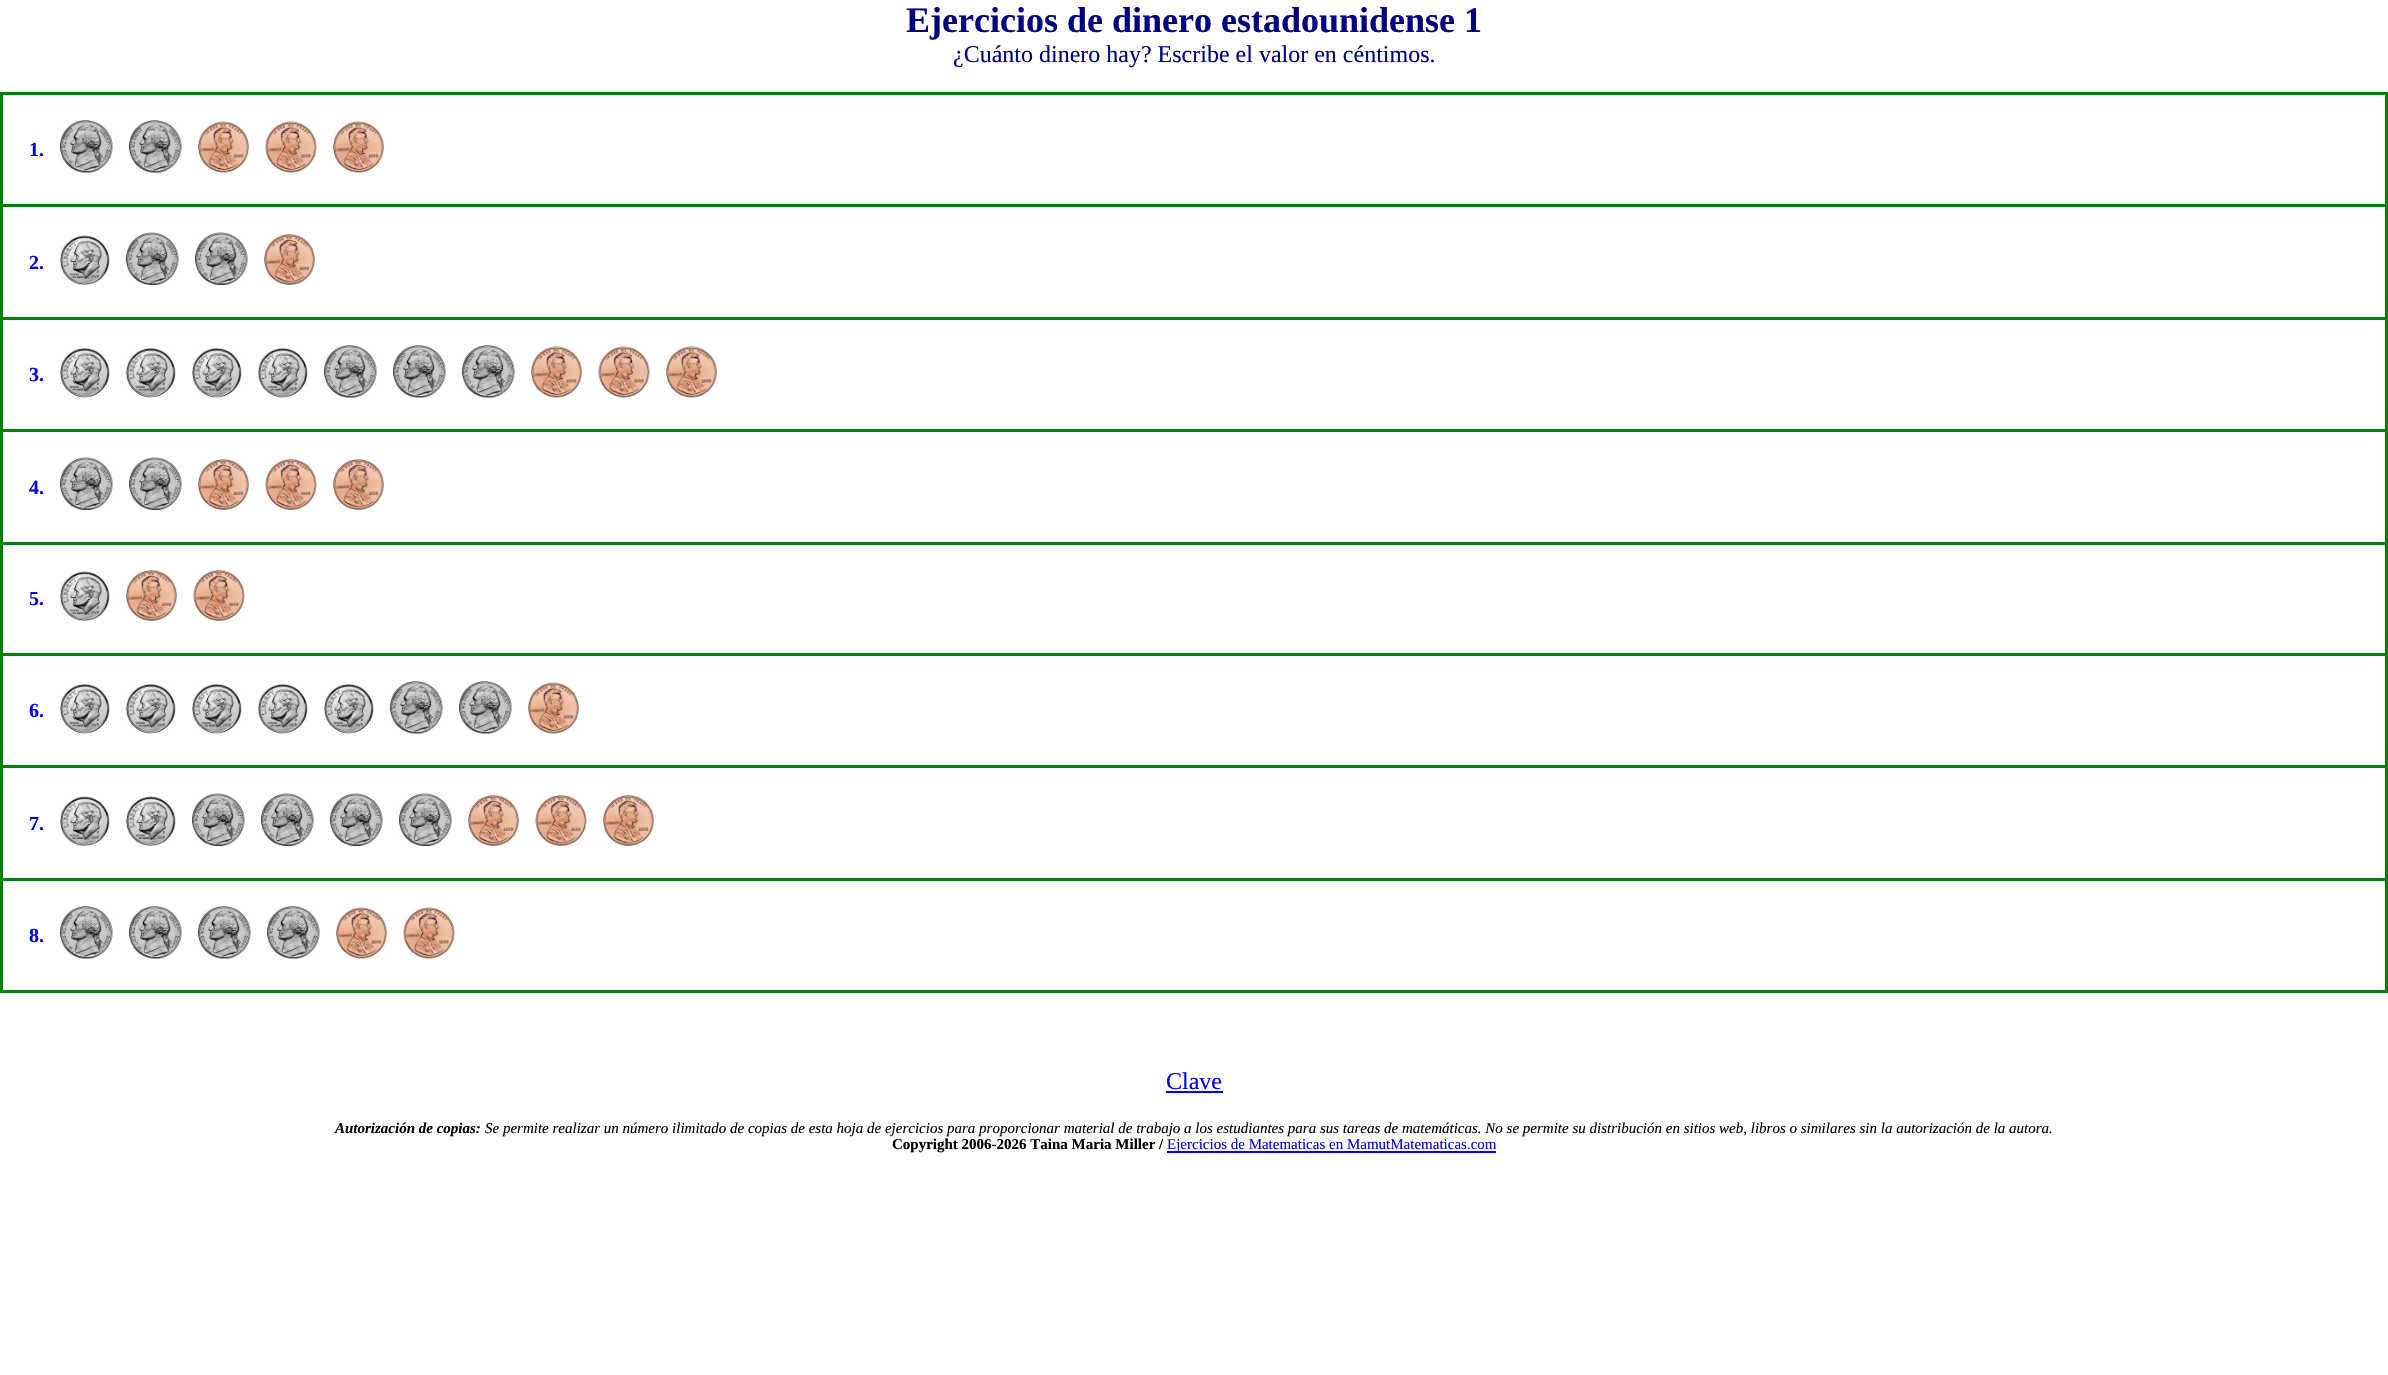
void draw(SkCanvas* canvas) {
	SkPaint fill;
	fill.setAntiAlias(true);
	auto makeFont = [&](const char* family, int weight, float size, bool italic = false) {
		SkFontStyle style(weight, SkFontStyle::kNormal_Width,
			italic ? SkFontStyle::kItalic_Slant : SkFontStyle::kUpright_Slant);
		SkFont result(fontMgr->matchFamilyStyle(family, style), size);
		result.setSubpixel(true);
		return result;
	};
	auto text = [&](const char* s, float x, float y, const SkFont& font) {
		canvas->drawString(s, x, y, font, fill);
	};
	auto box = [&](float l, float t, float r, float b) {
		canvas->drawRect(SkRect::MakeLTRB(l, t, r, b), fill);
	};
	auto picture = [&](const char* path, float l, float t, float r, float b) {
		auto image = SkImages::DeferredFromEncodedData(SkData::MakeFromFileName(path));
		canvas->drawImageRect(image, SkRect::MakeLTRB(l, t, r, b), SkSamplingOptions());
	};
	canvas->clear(0xFFFFFFFF);
	fill.setColor(0xFF008000);
	box(0, 92, 2388, 95);
	box(2385, 92, 2388, 993);
	box(0, 92, 3, 993);
	box(3, 204, 2385, 207);
	picture("image0.png", 60, 120, 113, 173);
	picture("image0.png", 129, 120, 182, 173);
	picture("image1.png", 198, 121, 249, 173);
	picture("image2.png", 265, 121, 317, 173);
	picture("image3.png", 333, 121, 384, 173);
	box(3, 317, 2385, 320);
	picture("image4.png", 60, 235, 110, 285);
	picture("image5.png", 126, 232, 179, 285);
	picture("image5.png", 195, 232, 248, 285);
	picture("image6.png", 264, 234, 315, 285);
	box(3, 429, 2385, 432);
	picture("image7.png", 60, 348, 110, 398);
	picture("image7.png", 126, 348, 176, 398);
	picture("image7.png", 192, 348, 242, 398);
	picture("image7.png", 258, 348, 308, 398);
	picture("image8.png", 324, 345, 377, 398);
	picture("image0.png", 393, 345, 446, 398);
	picture("image0.png", 462, 345, 515, 398);
	picture("image3.png", 531, 346, 582, 398);
	picture("image2.png", 598, 346, 650, 398);
	picture("image1.png", 666, 346, 717, 398);
	box(3, 542, 2385, 545);
	picture("image9.png", 60, 457, 113, 510);
	picture("image9.png", 129, 457, 182, 510);
	picture("image10.png", 198, 459, 249, 510);
	picture("image11.png", 265, 459, 317, 510);
	picture("image12.png", 333, 459, 384, 510);
	box(3, 653, 2385, 656);
	picture("image4.png", 60, 571, 110, 621);
	picture("image12.png", 126, 570, 177, 621);
	picture("image11.png", 193, 570, 245, 621);
	box(3, 765, 2385, 768);
	picture("image7.png", 60, 684, 110, 734);
	picture("image7.png", 126, 684, 176, 734);
	picture("image7.png", 192, 684, 242, 734);
	picture("image7.png", 258, 684, 308, 734);
	picture("image7.png", 324, 684, 374, 734);
	picture("image0.png", 390, 681, 443, 734);
	picture("image0.png", 459, 681, 512, 734);
	picture("image3.png", 528, 682, 579, 734);
	box(3, 878, 2385, 881);
	picture("image4.png", 60, 796, 110, 846);
	picture("image4.png", 126, 796, 176, 846);
	picture("image9.png", 192, 793, 245, 846);
	picture("image5.png", 261, 793, 314, 846);
	picture("image9.png", 330, 793, 383, 846);
	picture("image9.png", 399, 793, 452, 846);
	picture("image10.png", 468, 795, 519, 846);
	picture("image11.png", 535, 795, 587, 846);
	picture("image12.png", 603, 795, 654, 846);
	box(3, 990, 2385, 993);
	picture("image0.png", 60, 906, 113, 959);
	picture("image0.png", 129, 906, 182, 959);
	picture("image0.png", 198, 906, 251, 959);
	picture("image13.png", 267, 906, 320, 959);
	picture("image3.png", 336, 907, 387, 959);
	picture("image2.png", 403, 907, 455, 959);
	fill.setColor(0xFF0000EE);
	box(1166, 1091, 1223, 1093);
	box(1167, 1151, 1496, 1153);
	auto font1 = makeFont("Liberation Serif", 700, 36);
	fill.setColor(0xFF000080);
	text("Ejercicios de dinero estadounidense 1", 906, 32, font1);
	auto font2 = makeFont("Liberation Serif", 400, 24);
	text("¿Cuánto dinero hay? Escribe el valor en céntimos.", 953, 62, font2);
	auto font3 = makeFont("Liberation Serif", 700, 20);
	fill.setColor(0xFF0000F0);
	text("1.", 29, 156, font3);
	text("2.", 29, 269, font3);
	text("3.", 29, 381, font3);
	text("4.", 29, 494, font3);
	text("5.", 29, 605, font3);
	text("6.", 29, 717, font3);
	text("7.", 29, 830, font3);
	text("8.", 29, 942, font3);
	text("Clave", 1166, 1089, font2);
	auto font4 = makeFont("Liberation Serif", 700, 15, true);
	fill.setColor(0xFF000000);
	text("Autorización de copias:", 335, 1133, font4);
	auto font5 = makeFont("Liberation Serif", 400, 15, true);
	text("Se permite realizar un número ilimitado de copias de esta hoja de ejercicios para proporcionar material de trabajo a los estudiantes para sus tareas de matemáticas. No se permite su distribución en sitios web, libros o similares sin la autorización de la autora.", 485, 1133, font5);
	auto font6 = makeFont("Liberation Serif", 700, 15);
	text("Copyright 2006-2026 Taina Maria Miller /", 892, 1149, font6);
	auto font7 = makeFont("Liberation Serif", 400, 15);
	fill.setColor(0xFF0000F0);
	text("Ejercicios de Matematicas en MamutMatematicas.com", 1167, 1149, font7);
}
